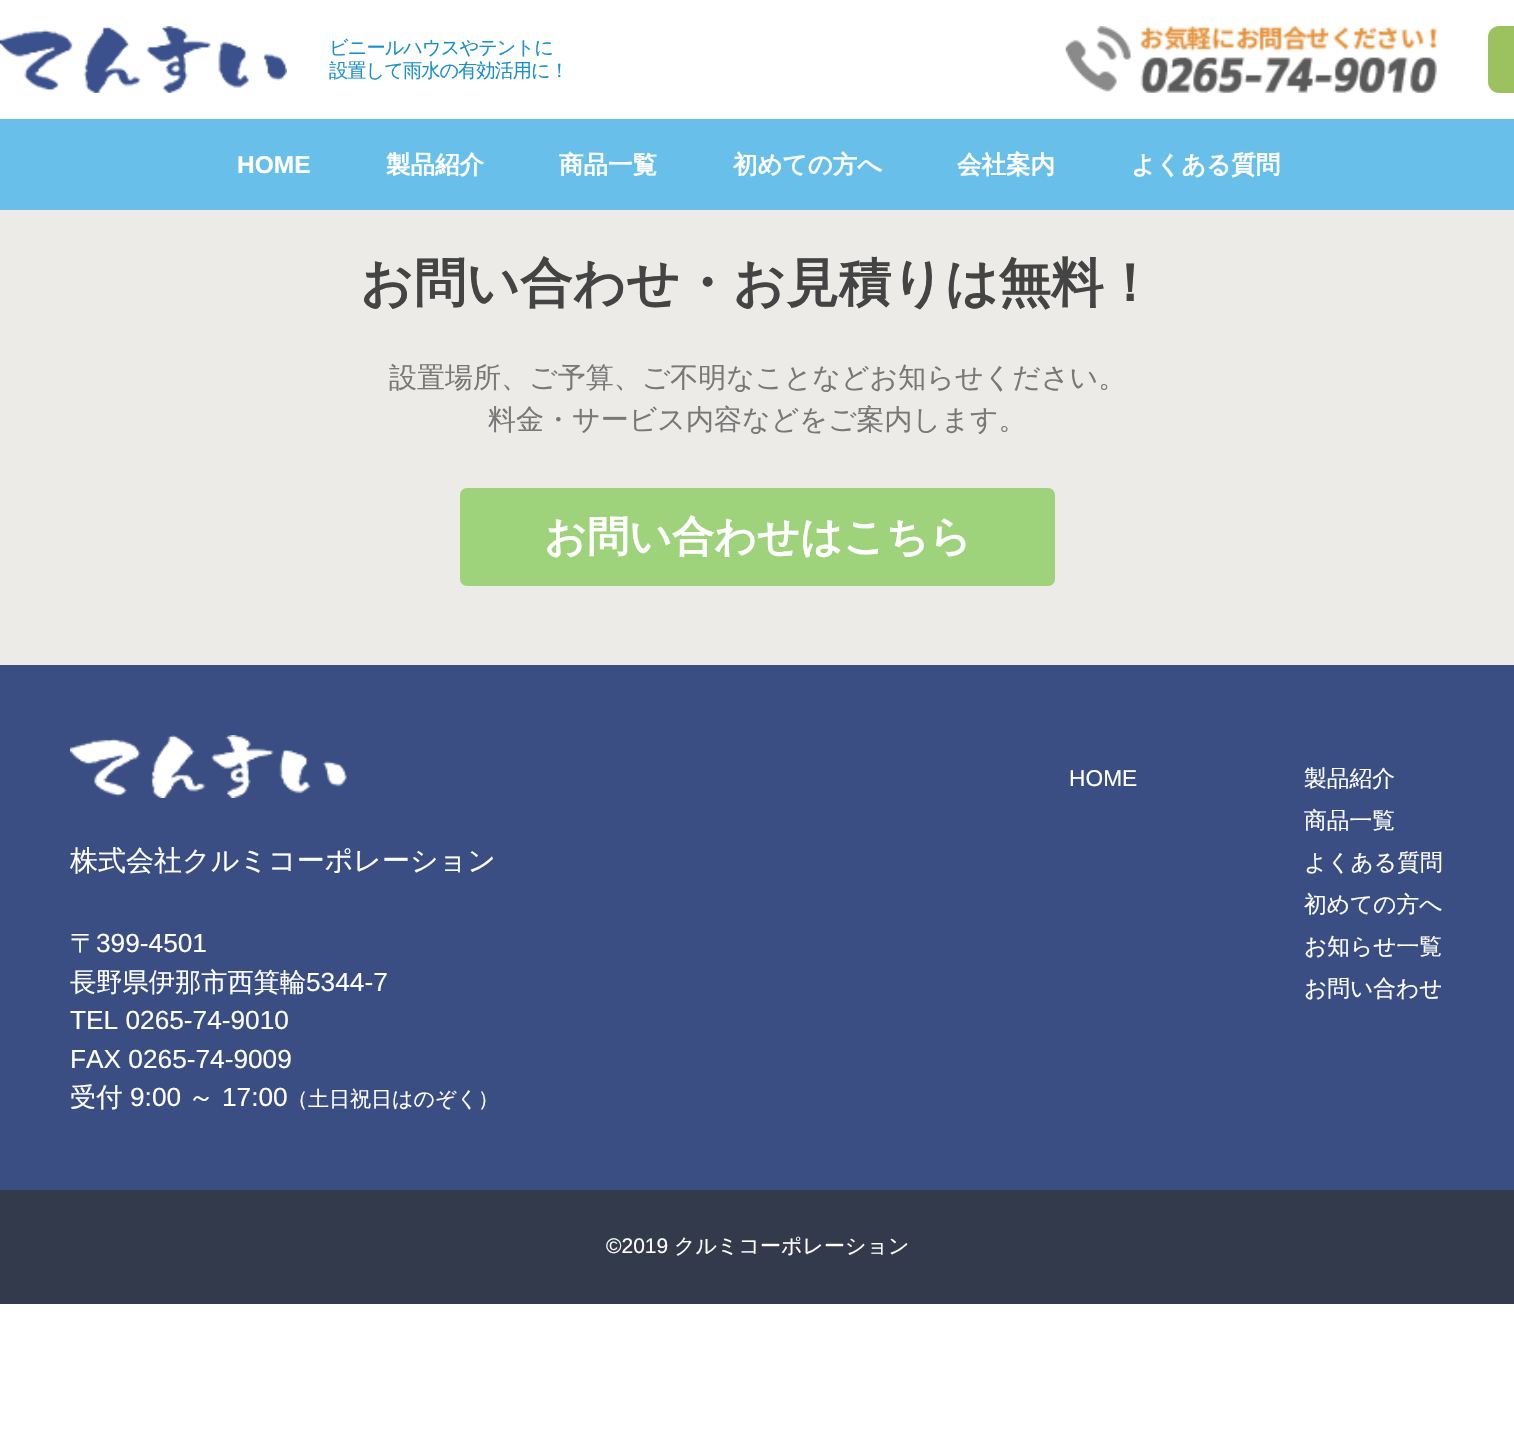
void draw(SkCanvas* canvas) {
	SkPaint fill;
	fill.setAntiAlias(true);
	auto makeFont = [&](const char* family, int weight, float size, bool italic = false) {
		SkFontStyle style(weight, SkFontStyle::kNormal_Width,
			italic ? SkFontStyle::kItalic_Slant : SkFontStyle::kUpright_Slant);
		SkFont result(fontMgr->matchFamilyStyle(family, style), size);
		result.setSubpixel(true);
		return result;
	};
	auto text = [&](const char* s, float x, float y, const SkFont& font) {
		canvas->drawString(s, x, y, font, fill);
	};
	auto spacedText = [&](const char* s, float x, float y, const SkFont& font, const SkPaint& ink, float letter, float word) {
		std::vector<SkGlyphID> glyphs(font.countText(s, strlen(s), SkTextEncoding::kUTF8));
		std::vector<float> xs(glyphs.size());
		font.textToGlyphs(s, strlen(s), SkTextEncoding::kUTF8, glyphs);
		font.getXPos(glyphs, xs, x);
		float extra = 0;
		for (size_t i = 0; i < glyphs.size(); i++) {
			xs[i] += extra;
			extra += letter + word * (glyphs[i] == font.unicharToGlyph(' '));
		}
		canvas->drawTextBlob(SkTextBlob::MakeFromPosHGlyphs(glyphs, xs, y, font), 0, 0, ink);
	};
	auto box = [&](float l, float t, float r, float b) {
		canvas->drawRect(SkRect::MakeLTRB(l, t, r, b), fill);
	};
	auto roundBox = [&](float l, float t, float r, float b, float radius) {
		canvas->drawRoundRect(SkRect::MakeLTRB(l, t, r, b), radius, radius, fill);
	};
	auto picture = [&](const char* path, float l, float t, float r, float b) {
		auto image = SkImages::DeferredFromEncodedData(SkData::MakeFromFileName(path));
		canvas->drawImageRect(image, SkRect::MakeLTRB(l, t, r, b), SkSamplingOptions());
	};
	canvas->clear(0xFFFFFFFF);
	picture("image0.png", 0, 26, 287, 93);
	picture("image1.png", 1065, 26, 1437, 93);
	fill.setColor(0xFF9CC25F);
	canvas->drawPath(SkPathBuilder().moveTo(1499, 26).lineTo(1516, 26).lineTo(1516, 93).lineTo(1499, 93).cubicTo(1493, 93, 1488, 88, 1488, 82).lineTo(1488, 37).cubicTo(1488, 31, 1493, 26, 1499, 26).close().detach(), fill);
	fill.setColor(0xFF68BFEA);
	box(0, 119, 1514, 210);
	fill.setColor(0xFFECEBE7);
	box(0, 210, 1514, 665);
	fill.setColor(0xFF9ED27B);
	roundBox(460, 488, 1055, 586, 7);
	fill.setColor(0xFF3A4E83);
	box(0, 665, 1514, 1190);
	picture("image2.png", 70, 735, 347, 798);
	fill.setColor(0xFF333A4C);
	box(0, 1190, 1514, 1304);
	auto font1 = makeFont("WenQuanYi Zen Hei", 500, 19.25f);
	fill.setColor(0xFF1C90C9);
	spacedText("ビニールハウスやテントに", 329, 54, font1, fill, -1, 0);
	spacedText("設置して雨水の有効活用に！", 329, 77, font1, fill, -1, 0);
	auto font2 = makeFont("Liberation Sans", 700, 24.5f);
	fill.setColor(0xFFFFFFFF);
	text("HOME", 237, 173, font2);
	auto font3 = makeFont("WenQuanYi Zen Hei", 700, 24.5f);
	text("製品紹介", 386, 173, font3);
	text("商品一覧", 559, 173, font3);
	text("初めての方へ", 733, 173, font3);
	text("会社案内", 957, 173, font3);
	text("よくある質問", 1131, 173, font3);
	auto font4 = makeFont("WenQuanYi Zen Hei", 700, 52.5f);
	fill.setColor(0xFF444444);
	text("お問い合わせ・お見積りは無料！", 360, 301, font4);
	auto font5 = makeFont("WenQuanYi Zen Hei", 500, 28);
	fill.setColor(0xFF787878);
	text("設置場所、ご予算、ご不明なことなどお知らせください。", 389, 387, font5);
	text("料金・サービス内容などをご案内します。", 488, 429, font5);
	auto font6 = makeFont("WenQuanYi Zen Hei", 700, 42);
	fill.setColor(0xFFFFFFFF);
	text("お問い合わせはこちら", 544, 551, font6);
	auto font7 = makeFont("Liberation Sans", 400, 22.75f);
	text("HOME", 1069, 786, font7);
	auto font8 = makeFont("WenQuanYi Zen Hei", 500, 22.75f);
	text("製品紹介", 1304, 786, font8);
	text("商品一覧", 1304, 828, font8);
	text("よくある質問", 1304, 870, font8);
	text("初めての方へ", 1304, 912, font8);
	text("お知らせ一覧", 1304, 954, font8);
	text("お問い合わせ", 1304, 996, font8);
	text("株式会社クルミコーポレーション", 70, 870, font5);
	auto font9 = makeFont("WenQuanYi Zen Hei", 500, 26.25f);
	text("〒", 70, 952, font9);
	auto font10 = makeFont("Liberation Sans", 400, 26.25f);
	text("399-4501", 96, 952, font10);
	text("長野県伊那市西箕輪", 70, 991, font9);
	text("5344-7", 306, 991, font10);
	text("TEL 0265-74-9010", 70, 1029, font10);
	text("FAX 0265-74-9009", 70, 1068, font10);
	text("受付", 70, 1106, font9);
	text("9:00", 130, 1106, font10);
	text("～", 188, 1106, font9);
	text("17:00", 222, 1106, font10);
	auto font11 = makeFont("WenQuanYi Zen Hei", 500, 21);
	text("（土日祝日はのぞく）", 287, 1106, font11);
	auto font12 = makeFont("Liberation Sans", 400, 21);
	text("©2019", 606, 1253, font12);
	text("クルミコーポレーション", 674, 1253, font11);
}
